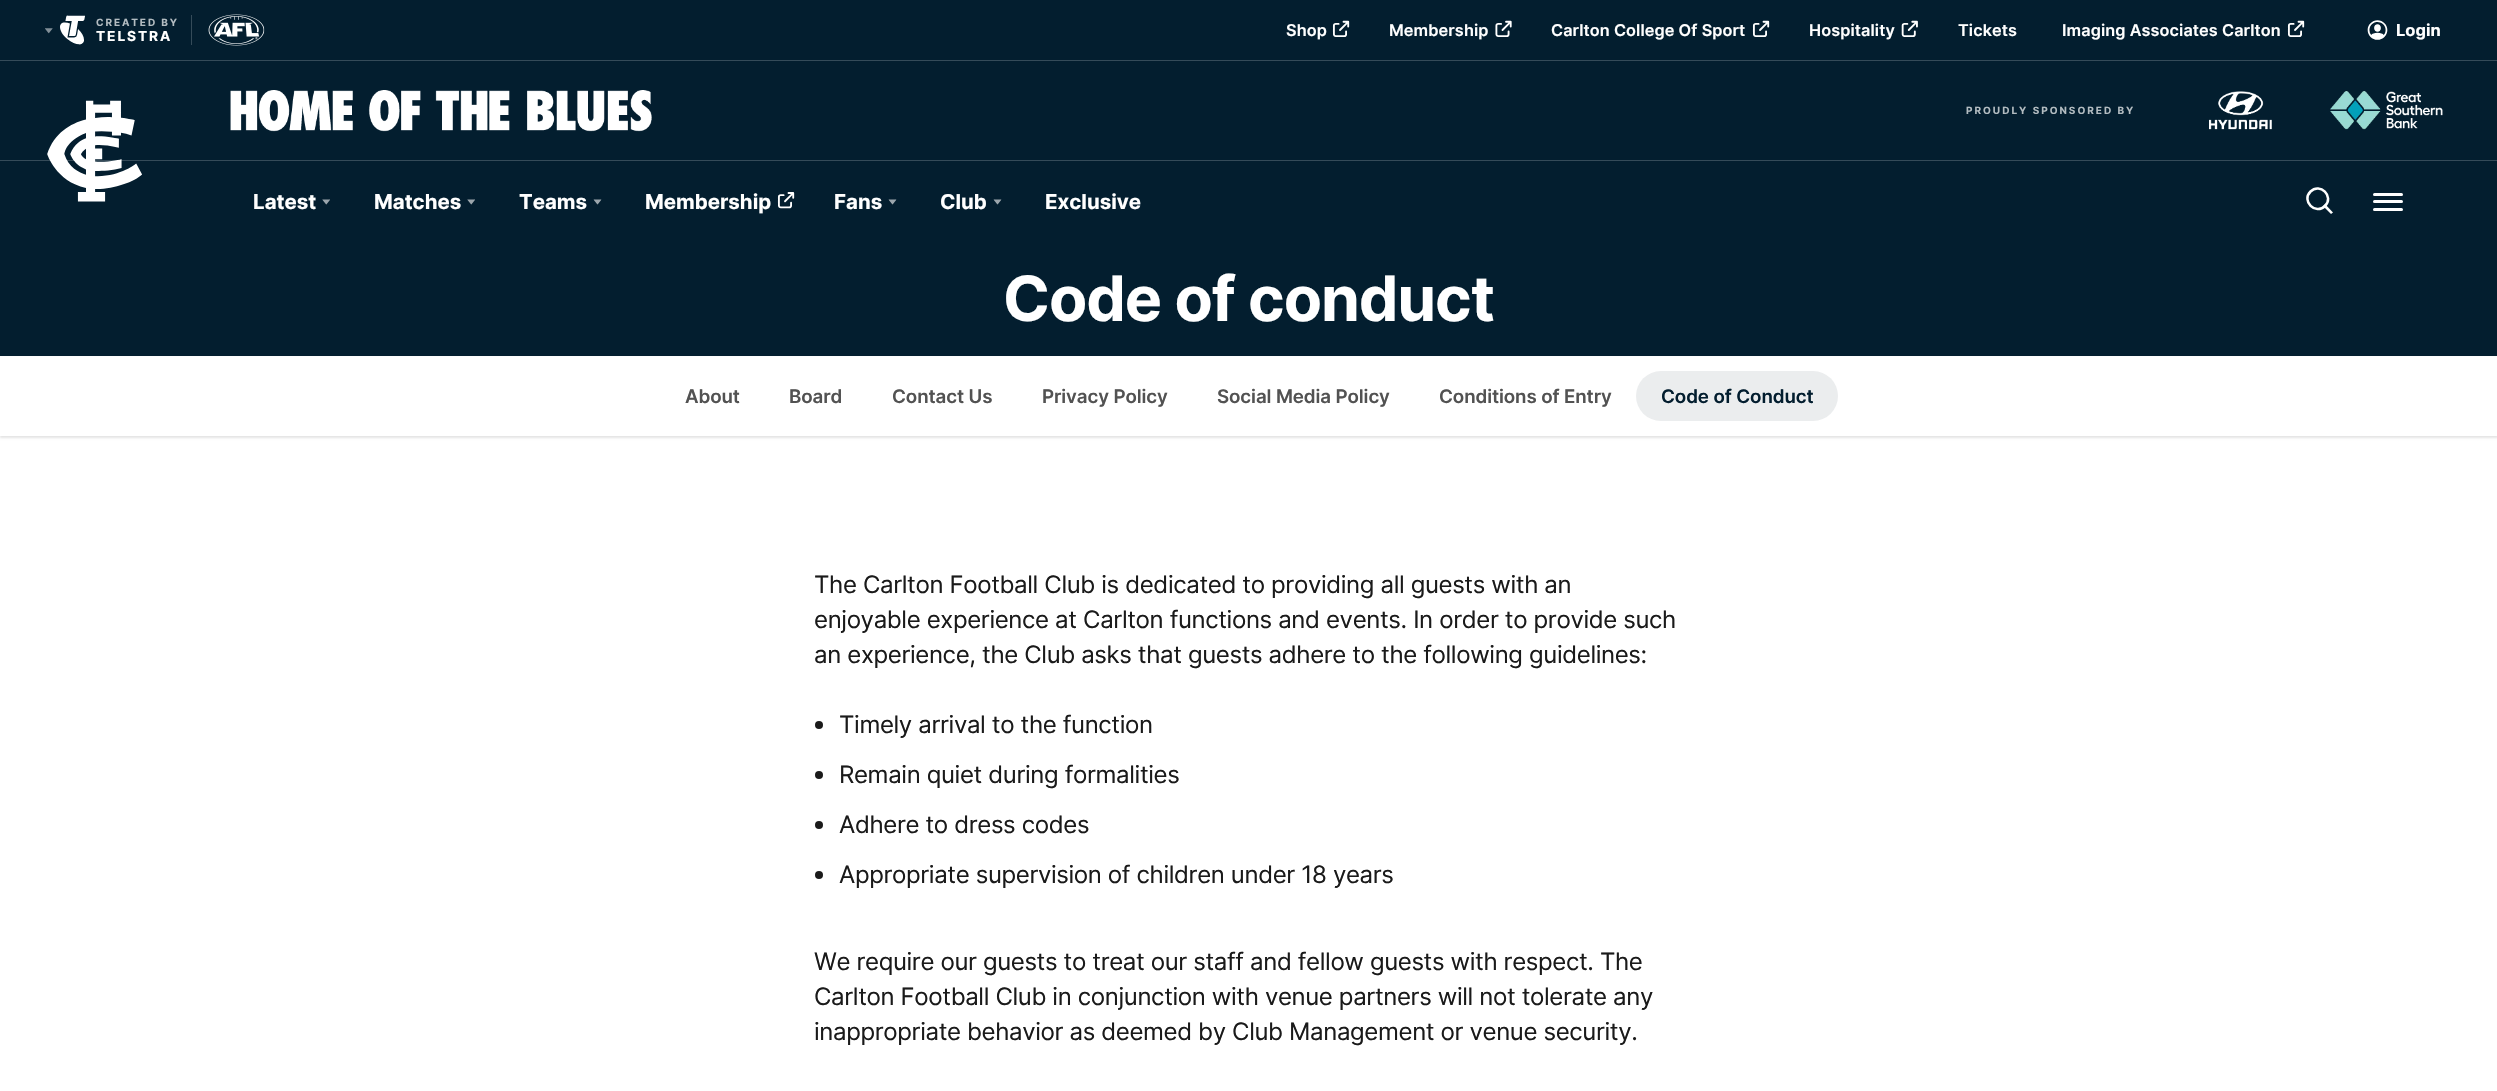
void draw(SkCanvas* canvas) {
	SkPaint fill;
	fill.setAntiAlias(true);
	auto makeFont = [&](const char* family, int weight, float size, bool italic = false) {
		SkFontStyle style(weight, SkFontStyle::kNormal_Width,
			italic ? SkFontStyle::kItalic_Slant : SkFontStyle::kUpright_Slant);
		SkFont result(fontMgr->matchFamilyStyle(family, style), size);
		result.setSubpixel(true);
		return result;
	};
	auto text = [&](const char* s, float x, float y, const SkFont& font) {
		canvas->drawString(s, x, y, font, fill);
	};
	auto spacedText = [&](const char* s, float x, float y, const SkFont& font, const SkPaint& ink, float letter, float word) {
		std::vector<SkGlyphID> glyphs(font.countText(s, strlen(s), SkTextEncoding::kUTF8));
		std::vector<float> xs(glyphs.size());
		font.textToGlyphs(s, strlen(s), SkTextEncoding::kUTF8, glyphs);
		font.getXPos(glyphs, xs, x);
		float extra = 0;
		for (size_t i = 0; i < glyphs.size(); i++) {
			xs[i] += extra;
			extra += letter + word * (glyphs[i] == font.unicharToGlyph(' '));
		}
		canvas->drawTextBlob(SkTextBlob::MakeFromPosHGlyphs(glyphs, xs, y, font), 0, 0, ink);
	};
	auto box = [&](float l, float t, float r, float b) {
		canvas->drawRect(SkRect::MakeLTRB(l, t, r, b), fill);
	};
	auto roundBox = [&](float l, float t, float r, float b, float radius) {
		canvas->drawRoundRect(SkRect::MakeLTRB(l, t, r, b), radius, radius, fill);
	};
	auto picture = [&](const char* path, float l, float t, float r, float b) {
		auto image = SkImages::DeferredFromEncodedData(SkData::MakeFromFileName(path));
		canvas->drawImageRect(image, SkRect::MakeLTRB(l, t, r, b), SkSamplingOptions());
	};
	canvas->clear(0xFFFFFFFF);
	fill.setColor(0xFF031E2F);
	box(0, 0, 2497, 60);
	fill.setColor(0xFF354B59);
	box(0, 60, 2497, 61);
	picture("image0.png", 45, 28, 53, 34);
	picture("image1.png", 60, 15, 85, 45);
	box(191, 15, 192, 45);
	picture("image2.png", 208, 14, 265, 46);
	picture("image3.png", 1332, 20, 1350, 37);
	picture("image4.png", 1495, 20, 1512, 37);
	picture("image3.png", 1752, 20, 1770, 37);
	picture("image5.png", 1901, 20, 1918, 37);
	picture("image3.png", 2287, 20, 2305, 37);
	picture("image6.png", 2367, 20, 2388, 40);
	fill.setColor(0xFF031E2F);
	box(0, 61, 2497, 356);
	fill.setColor(0xFF354B59);
	box(0, 160, 2497, 161);
	picture("image7.png", 230, 90, 652, 132);
	picture("image8.png", 2209, 91, 2443, 130);
	picture("image9.png", 47, 100, 142, 202);
	picture("image10.png", 322, 199, 330, 205);
	picture("image10.png", 467, 199, 475, 205);
	picture("image11.png", 593, 199, 602, 205);
	picture("image12.png", 777, 192, 795, 209);
	picture("image11.png", 888, 199, 897, 205);
	picture("image11.png", 993, 199, 1002, 205);
	fill.setStyle(SkPaint::kStroke_Style);
	fill.setStrokeWidth(2.5f);
	fill.setColor(0xFFFFFFFF);
	canvas->drawPath(SkPathBuilder().moveTo(2310.5f, 191.5f).cubicTo(2320, 182, 2334.5f, 196.5f, 2325, 206).cubicTo(2315.5f, 215.5f, 2301, 201, 2310.5f, 191.5f).close().detach(), fill);
	fill.setStyle(SkPaint::kFill_Style);
	canvas->drawPath(SkPathBuilder().moveTo(2323, 206).lineTo(2325, 204).lineTo(2333, 212.5f).lineTo(2331, 214).close().detach(), fill);
	roundBox(2373, 193, 2403, 196, 1.5f);
	roundBox(2373, 200, 2403, 203, 1.5f);
	roundBox(2373, 208, 2403, 211, 1.5f);
	fill.setColor(0x1A000000);
	fill.setMaskFilter(SkMaskFilter::MakeBlur(kNormal_SkBlurStyle, 1));
	canvas->drawRect(SkRect::MakeLTRB(0, 358, 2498, 438), fill);
	fill.setMaskFilter(nullptr);
	fill.setColor(0xFFFFFFFF);
	box(0, 357, 2497, 436);
	fill.setColor(0xFFEBEDEE);
	roundBox(1636, 371, 1838, 421, 25);
	fill.setColor(0xFF1A1A1A);
	canvas->drawCircle(819, 725, 4, fill);
	canvas->drawCircle(819, 775, 4, fill);
	canvas->drawCircle(819, 825, 4, fill);
	canvas->drawCircle(819, 875, 4, fill);
	auto font1 = makeFont("Inter", 700, 10);
	fill.setColor(0xFFB3BCC1);
	spacedText("CREATED BY", 96, 26, font1, fill, 1.9f, 0);
	auto font2 = makeFont("Inter", 700, 13.75f);
	fill.setColor(0xFFFFFFFF);
	spacedText("TELSTRA", 96, 41, font2, fill, 1.9f, 0);
	auto font3 = makeFont("Inter", 600, 16.25f);
	spacedText("Shop", 1286, 36, font3, fill, 0.1f, 0);
	spacedText("Membership", 1389, 36, font3, fill, 0.1f, 0);
	spacedText("Carlton College Of Sport", 1551, 36, font3, fill, 0.1f, 0);
	spacedText("Hospitality", 1809, 36, font3, fill, 0.1f, 0);
	spacedText("Tickets", 1958, 36, font3, fill, 0.1f, 0);
	spacedText("Imaging Associates Carlton", 2062, 36, font3, fill, 0.1f, 0);
	auto font4 = makeFont("Inter", 700, 16.5f);
	text("Login", 2396, 36, font4);
	fill.setColor(0xFFB3BCC1);
	spacedText("PROUDLY SPONSORED BY", 1966, 114, font1, fill, 2, 0);
	auto font5 = makeFont("Inter", 700, 20.5f);
	fill.setColor(0xFFFFFFFF);
	text("Latest", 253, 209, font5);
	text("Matches", 374, 209, font5);
	text("Teams", 519, 209, font5);
	text("Membership", 645, 209, font5);
	text("Fans", 834, 209, font5);
	text("Club", 940, 209, font5);
	text("Exclusive", 1045, 209, font5);
	auto font6 = makeFont("Inter", 700, 62.5f);
	spacedText("Code of conduct", 1003, 321, font6, fill, -1.1f, 0);
	auto font7 = makeFont("Inter", 600, 18.75f);
	fill.setColor(0xFF525252);
	spacedText("About", 685, 403, font7, fill, -0.1f, 0);
	spacedText("Board", 789, 403, font7, fill, -0.1f, 0);
	spacedText("Contact Us", 892, 403, font7, fill, -0.1f, 0);
	spacedText("Privacy Policy", 1042, 403, font7, fill, -0.1f, 0);
	spacedText("Social Media Policy", 1217, 403, font7, fill, -0.1f, 0);
	spacedText("Conditions of Entry", 1439, 403, font7, fill, -0.1f, 0);
	fill.setColor(0xFF031E2F);
	spacedText("Code of Conduct", 1661, 403, font7, fill, -0.1f, 0);
	auto font8 = makeFont("Inter", 400, 24.05f);
	fill.setColor(0xFF1A1A1A);
	spacedText("The Carlton Football Club is dedicated to providing all guests with an", 814, 593, font8, fill, -0.38f, 0);
	spacedText("enjoyable experience at Carlton functions and events. In order to provide such", 814, 628, font8, fill, -0.38f, 0);
	spacedText("an experience, the Club asks that guests adhere to the following guidelines:", 814, 663, font8, fill, -0.38f, 0);
	spacedText("Timely arrival to the function", 839, 733, font8, fill, -0.38f, 0);
	spacedText("Remain quiet during formalities", 839, 783, font8, fill, -0.38f, 0);
	spacedText("Adhere to dress codes", 839, 833, font8, fill, -0.38f, 0);
	spacedText("Appropriate supervision of children under 18 years", 839, 883, font8, fill, -0.38f, 0);
	spacedText("We require our guests to treat our staff and fellow guests with respect. The", 814, 970, font8, fill, -0.38f, 0);
	spacedText("Carlton Football Club in conjunction with venue partners will not tolerate any", 814, 1005, font8, fill, -0.38f, 0);
	spacedText("inappropriate behavior as deemed by Club Management or venue security.", 814, 1040, font8, fill, -0.38f, 0);
}
